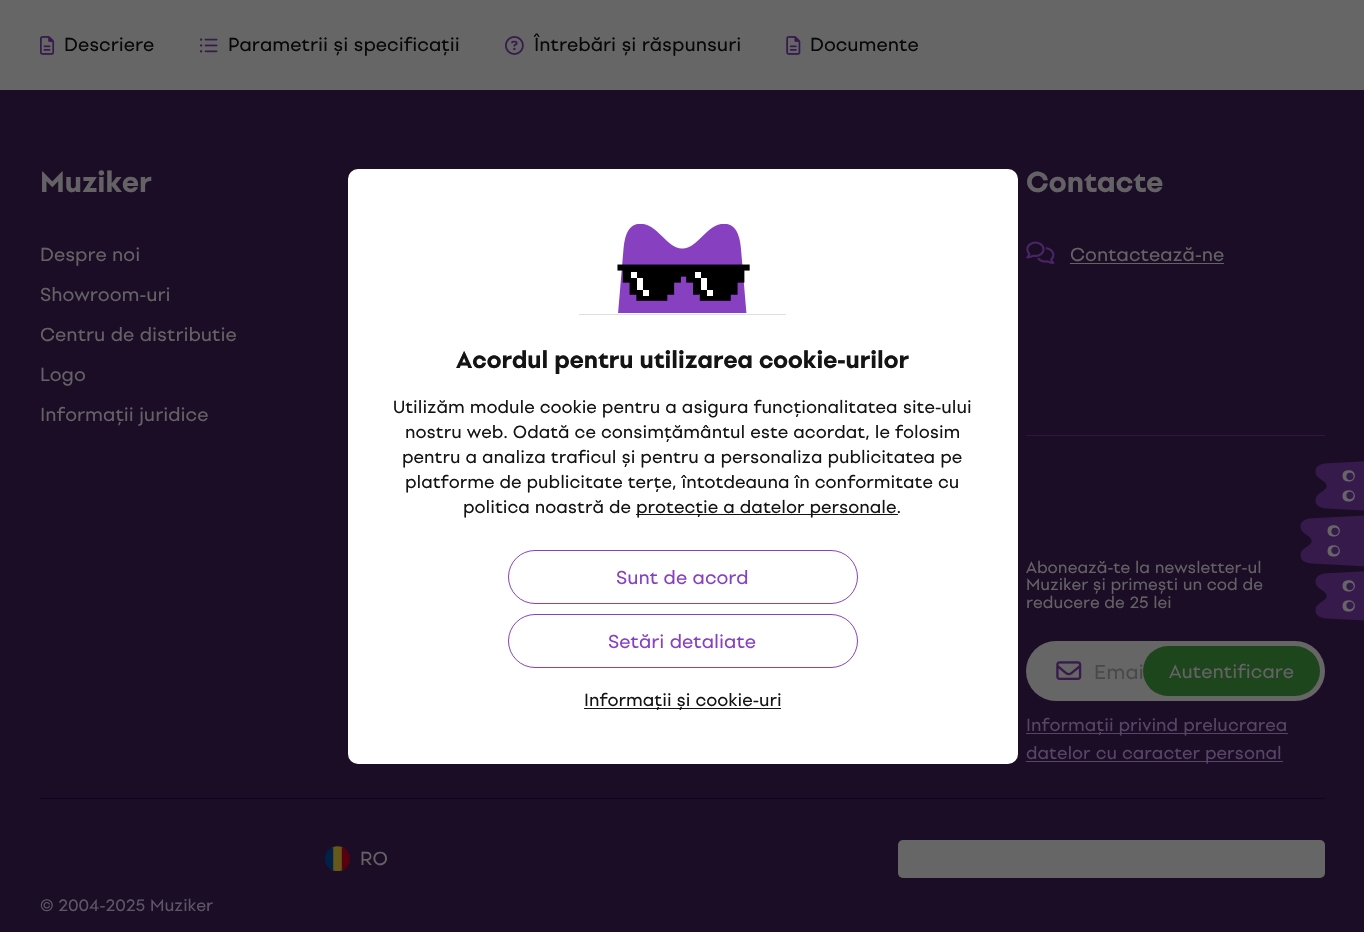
void draw(SkCanvas* canvas) {
	SkPaint fill;
	fill.setAntiAlias(true);
	auto makeFont = [&](const char* family, int weight, float size, bool italic = false) {
		SkFontStyle style(weight, SkFontStyle::kNormal_Width,
			italic ? SkFontStyle::kItalic_Slant : SkFontStyle::kUpright_Slant);
		SkFont result(fontMgr->matchFamilyStyle(family, style), size);
		result.setSubpixel(true);
		return result;
	};
	auto text = [&](const char* s, float x, float y, const SkFont& font) {
		canvas->drawString(s, x, y, font, fill);
	};
	auto box = [&](float l, float t, float r, float b) {
		canvas->drawRect(SkRect::MakeLTRB(l, t, r, b), fill);
	};
	auto roundBox = [&](float l, float t, float r, float b, float radius) {
		canvas->drawRoundRect(SkRect::MakeLTRB(l, t, r, b), radius, radius, fill);
	};
	auto picture = [&](const char* path, float l, float t, float r, float b) {
		auto image = SkImages::DeferredFromEncodedData(SkData::MakeFromFileName(path));
		canvas->drawImageRect(image, SkRect::MakeLTRB(l, t, r, b), SkSamplingOptions());
	};
	canvas->clear(0xFF1B0D26);
	fill.setColor(0xFF666666);
	box(0, 0, 1364, 90);
	picture("image0.png", 40, 36, 55, 55);
	picture("image1.png", 199, 38, 218, 53);
	picture("image2.png", 505, 36, 524, 55);
	picture("image3.png", 786, 36, 801, 55);
	picture("image4.png", 1026, 241, 1055, 264);
	fill.setColor(0xFF646265);
	box(1070, 263, 1224, 264);
	fill.setColor(0xFF2F1642);
	box(1026, 435, 1325, 436);
	fill.setColor(0xFF666666);
	roundBox(1026, 641, 1325, 701, 30);
	picture("image5.png", 1056, 661, 1082, 680);
	fill.setColor(0xFF1E461C);
	roundBox(1143, 646, 1320, 696, 25);
	fill.setColor(0xFF574466);
	box(1026, 733, 1288, 734);
	box(1026, 761, 1283, 762);
	fill.setColor(0xFF150123);
	box(40, 798, 1325, 799);
	picture("image6.png", 325, 846, 350, 871);
	fill.setColor(0xFF666666);
	roundBox(898, 840, 1325, 878, 5);
	picture("image7.png", 1315, 461, 1364, 511);
	picture("image8.png", 1300, 515, 1364, 567);
	picture("image7.png", 1315, 571, 1364, 621);
	fill.setColor(0xFFFFFFFF);
	roundBox(348, 169, 1018, 764, 10);
	fill.setColor(0xFFE0E0DE);
	box(579, 314, 786, 315);
	picture("image9.png", 618, 224, 747, 313);
	picture("image10.png", 617, 264, 750, 301);
	fill.setColor(0xFF141414);
	box(636, 514, 898, 515);
	fill.setStyle(SkPaint::kStroke_Style);
	fill.setStrokeWidth(1);
	fill.setColor(0xFF8740BF);
	canvas->drawRoundRect(SkRect::MakeLTRB(508.5f, 550.5f, 857.5f, 603.5f), 26.5f, 26.5f, fill);
	canvas->drawRoundRect(SkRect::MakeLTRB(508.5f, 614.5f, 857.5f, 667.5f), 26.5f, 26.5f, fill);
	fill.setStyle(SkPaint::kFill_Style);
	fill.setColor(0xFF141414);
	box(584, 708, 781, 709);
	auto font1 = makeFont("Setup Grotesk", 400, 18.75f);
	fill.setColor(0xFF080808);
	text("Descriere", 64, 51, font1);
	text("Parametrii și specificații", 228, 51, font1);
	text("Întrebări și răspunsuri", 534, 51, font1);
	text("Documente", 810, 51, font1);
	auto font2 = makeFont("Setup Grotesk", 700, 28.75f);
	fill.setColor(0xFF646265);
	text("Muziker", 40, 192, font2);
	text("Despre noi", 40, 261, font1);
	text("Showroom-uri", 40, 301, font1);
	text("Centru de distributie", 40, 341, font1);
	text("Logo", 40, 381, font1);
	text("Informații juridice", 40, 421, font1);
	text("Contacte", 1026, 192, font2);
	text("Contactează-ne", 1070, 261, font1);
	auto font3 = makeFont("Setup Grotesk", 400, 16.25f);
	text("Abonează-te la newsletter-ul", 1026, 573, font3);
	text("Muziker și primești un cod de", 1026, 590, font3);
	text("reducere de 25 lei", 1026, 608, font3);
	auto font4 = makeFont("Setup Grotesk", 400, 20);
	fill.setColor(0xFF4A4949);
	text("Emai", 1094, 679, font4);
	fill.setColor(0xFF646265);
	text("Autentificare", 1169, 678, font1);
	auto font5 = makeFont("Setup Grotesk", 400, 17.5f);
	fill.setColor(0xFF574466);
	text("Informații privind prelucrarea", 1026, 731, font5);
	text("datelor cu caracter personal", 1026, 759, font5);
	fill.setColor(0xFF646265);
	text("RO", 360, 865, font1);
	auto font6 = makeFont("Setup Grotesk", 400, 16.5f);
	fill.setColor(0xFF5E5666);
	text("© 2004-2025 Muziker", 40, 911, font6);
	auto font7 = makeFont("Setup Grotesk", 700, 23.75f);
	fill.setColor(0xFF141414);
	text("Acordul pentru utilizarea cookie-urilor", 456, 368, font7);
	text("Utilizăm module cookie pentru a asigura funcționalitatea site-ului", 393, 413, font5);
	text("nostru web. Odată ce consimțământul este acordat, le folosim", 405, 438, font5);
	text("pentru a analiza traficul și pentru a personaliza publicitatea pe", 402, 463, font5);
	text("platforme de publicitate terțe, întotdeauna în conformitate cu", 405, 488, font5);
	text("politica noastră de", 463, 513, font5);
	text("protecție a datelor personale.", 636, 513, font5);
	fill.setColor(0xFF8740BF);
	text("Sunt de acord", 616, 584, font1);
	text("Setări detaliate", 608, 648, font1);
	fill.setColor(0xFF141414);
	text("Informații și cookie-uri", 584, 706, font5);
}
